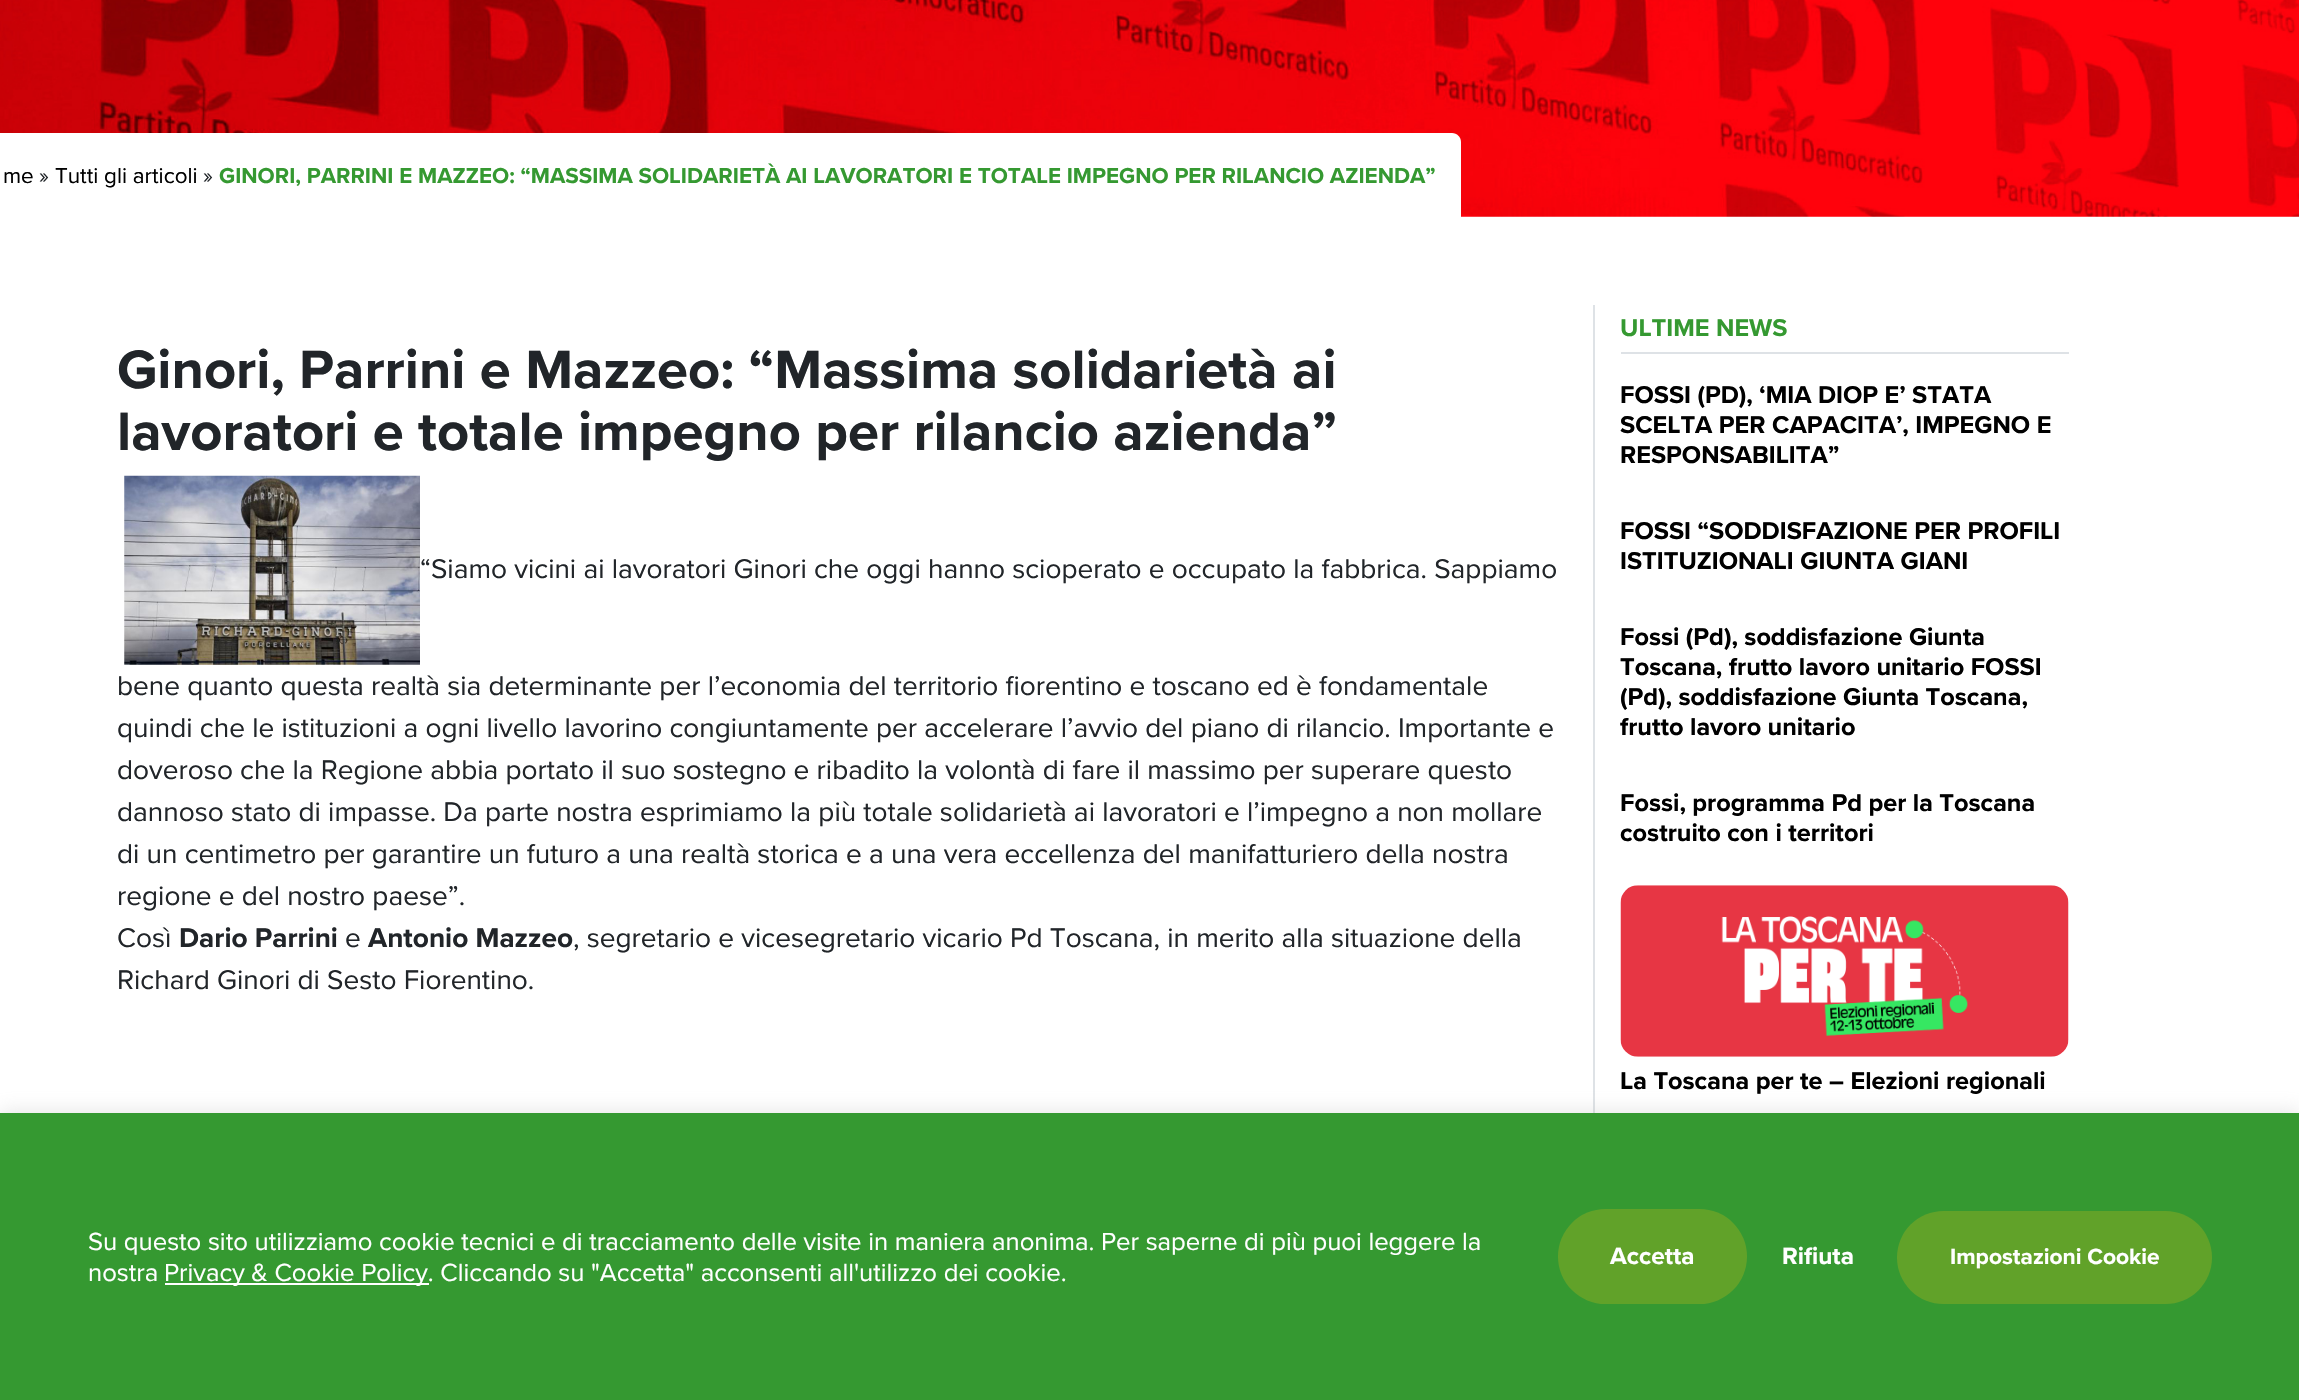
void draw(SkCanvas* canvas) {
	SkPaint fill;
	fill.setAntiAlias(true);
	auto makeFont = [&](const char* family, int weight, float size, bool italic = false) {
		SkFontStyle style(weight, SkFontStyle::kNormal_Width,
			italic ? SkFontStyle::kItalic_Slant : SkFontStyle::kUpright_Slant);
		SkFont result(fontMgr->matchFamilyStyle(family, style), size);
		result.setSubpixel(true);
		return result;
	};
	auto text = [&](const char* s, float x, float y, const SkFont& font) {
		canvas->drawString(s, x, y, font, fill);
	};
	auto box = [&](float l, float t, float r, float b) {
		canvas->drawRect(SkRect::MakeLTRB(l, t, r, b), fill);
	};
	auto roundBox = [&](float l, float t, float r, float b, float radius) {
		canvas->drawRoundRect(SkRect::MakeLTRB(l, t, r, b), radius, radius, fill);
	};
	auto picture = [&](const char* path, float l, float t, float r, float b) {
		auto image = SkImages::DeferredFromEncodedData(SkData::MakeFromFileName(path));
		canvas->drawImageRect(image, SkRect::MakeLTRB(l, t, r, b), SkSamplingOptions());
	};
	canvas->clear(0xFFFFFFFF);
	picture("image0.png", 0, 0, 2299, 217);
	fill.setColor(0xFFFFFFFF);
	box(0, 133, 219, 217);
	canvas->drawPath(SkPathBuilder().moveTo(219, 133).lineTo(1452, 133).cubicTo(1457, 133, 1461, 137, 1461, 142).lineTo(1461, 219).lineTo(219, 219).close().detach(), fill);
	fill.setColor(0xFFDEE2E6);
	box(1593, 305, 1595, 1113);
	picture("image1.png", 124, 475, 420, 665);
	box(1621, 352, 2069, 354);
	picture("image2.png", 1620, 885, 2069, 1057);
	fill.setColor(0x4DACABAB);
	fill.setMaskFilter(SkMaskFilter::MakeBlur(kNormal_SkBlurStyle, 9));
	canvas->drawRect(SkRect::MakeLTRB(0, 1111, 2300, 1398), fill);
	fill.setMaskFilter(nullptr);
	fill.setColor(0xFF359931);
	box(0, 1113, 2299, 1400);
	fill.setColor(0xFFFFFFFF);
	box(165, 1283, 429, 1285);
	fill.setColor(0xFF61A229);
	roundBox(1558, 1209, 1747, 1304, 47.5f);
	roundBox(1897, 1211, 2212, 1304, 46.5f);
	auto font1 = makeFont("Proxima Nova", 400, 22.4f);
	fill.setColor(0xFF000000);
	text("me", 3, 183, font1);
	fill.setColor(0xFF212529);
	text("»", 39, 183, font1);
	fill.setColor(0xFF000000);
	text("Tutti gli articoli", 55, 183, font1);
	fill.setColor(0xFF212529);
	text("»", 203, 183, font1);
	auto font2 = makeFont("Proxima Nova", 700, 22.4f);
	fill.setColor(0xFF359931);
	text("GINORI, PARRINI E MAZZEO: “MASSIMA SOLIDARIETÀ AI LAVORATORI E TOTALE IMPEGNO PER RILANCIO AZIENDA”", 219, 183, font2);
	auto font3 = makeFont("Proxima Nova", 700, 56);
	fill.setColor(0xFF212529);
	text("Ginori, Parrini e Mazzeo: “Massima solidarietà ai", 117, 388, font3);
	text("lavoratori e totale impegno per rilancio azienda”", 117, 450, font3);
	auto font4 = makeFont("Proxima Nova", 400, 28);
	text("“Siamo vicini ai lavoratori Ginori che oggi hanno scioperato e occupato la fabbrica. Sappiamo", 420, 578, font4);
	text("bene quanto questa realtà sia determinante per l’economia del territorio fiorentino e toscano ed è fondamentale", 117, 695, font4);
	text("quindi che le istituzioni a ogni livello lavorino congiuntamente per accelerare l’avvio del piano di rilancio. Importante e", 117, 737, font4);
	text("doveroso che la Regione abbia portato il suo sostegno e ribadito la volontà di fare il massimo per superare questo", 117, 779, font4);
	text("dannoso stato di impasse. Da parte nostra esprimiamo la più totale solidarietà ai lavoratori e l’impegno a non mollare", 117, 821, font4);
	text("di un centimetro per garantire un futuro a una realtà storica e a una vera eccellenza del manifatturiero della nostra", 117, 863, font4);
	text("regione e del nostro paese”.", 117, 905, font4);
	text("Così", 117, 947, font4);
	auto font5 = makeFont("Proxima Nova", 700, 28);
	text("Dario Parrini", 179, 947, font5);
	text("e", 345, 947, font4);
	text("Antonio Mazzeo", 368, 947, font5);
	text(", segretario e vicesegretario vicario Pd Toscana, in merito alla situazione della", 573, 947, font4);
	text("Richard Ginori di Sesto Fiorentino.", 117, 989, font4);
	auto font6 = makeFont("Proxima Nova", 700, 25.25f);
	fill.setColor(0xFF359931);
	text("ULTIME NEWS", 1620, 336, font6);
	fill.setColor(0xFF000000);
	text("FOSSI (PD), ‘MIA DIOP E’ STATA", 1620, 403, font6);
	text("SCELTA PER CAPACITA’, IMPEGNO E", 1620, 433, font6);
	text("RESPONSABILITA”", 1620, 463, font6);
	text("FOSSI “SODDISFAZIONE PER PROFILI", 1620, 539, font6);
	text("ISTITUZIONALI GIUNTA GIANI", 1620, 569, font6);
	text("Fossi (Pd), soddisfazione Giunta", 1620, 645, font6);
	text("Toscana, frutto lavoro unitario FOSSI", 1620, 675, font6);
	text("(Pd), soddisfazione Giunta Toscana,", 1620, 705, font6);
	text("frutto lavoro unitario", 1620, 735, font6);
	text("Fossi, programma Pd per la Toscana", 1620, 811, font6);
	text("costruito con i territori", 1620, 841, font6);
	text("La Toscana per te – Elezioni regionali", 1620, 1089, font6);
	auto font7 = makeFont("Proxima Nova", 400, 25.67f);
	fill.setColor(0xFFFFFFFF);
	text("Su questo sito utilizziamo cookie tecnici e di tracciamento delle visite in maniera anonima. Per saperne di più puoi leggere la", 88, 1250, font7);
	text("nostra", 88, 1281, font7);
	text("Privacy & Cookie Policy. Cliccando su \"Accetta\" acconsenti all'utilizzo dei cookie.", 164, 1281, font7);
	auto font8 = makeFont("Proxima Nova", 700, 24.5f);
	text("Accetta", 1610, 1264, font8);
	text("Rifiuta", 1782, 1264, font8);
	auto font9 = makeFont("Proxima Nova", 700, 22.75f);
	text("Impostazioni Cookie", 1950, 1264, font9);
}
